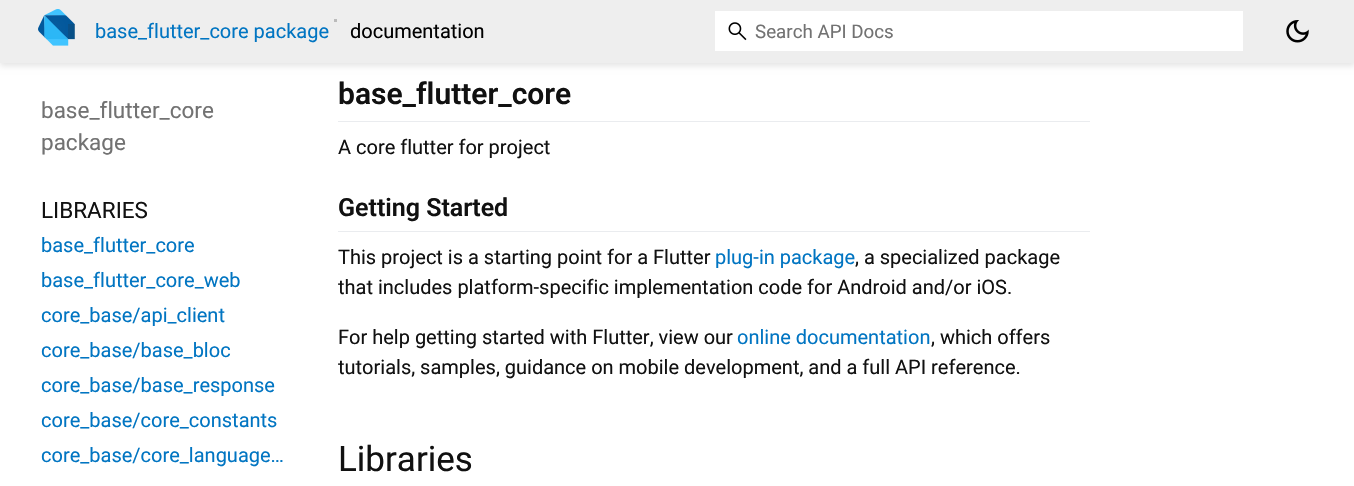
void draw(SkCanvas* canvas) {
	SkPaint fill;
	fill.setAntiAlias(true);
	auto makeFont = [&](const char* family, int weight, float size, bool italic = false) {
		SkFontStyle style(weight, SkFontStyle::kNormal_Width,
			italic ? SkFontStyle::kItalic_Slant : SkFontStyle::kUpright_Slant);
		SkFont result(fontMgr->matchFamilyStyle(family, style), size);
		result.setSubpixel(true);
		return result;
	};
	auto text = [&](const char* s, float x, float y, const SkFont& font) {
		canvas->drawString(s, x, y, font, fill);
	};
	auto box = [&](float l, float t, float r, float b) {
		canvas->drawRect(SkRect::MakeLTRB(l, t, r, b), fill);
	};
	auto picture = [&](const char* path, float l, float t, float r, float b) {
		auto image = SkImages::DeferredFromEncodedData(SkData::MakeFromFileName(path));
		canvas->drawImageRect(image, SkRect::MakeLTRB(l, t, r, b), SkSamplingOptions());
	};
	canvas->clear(0xFFFFFFFF);
	fill.setColor(0x1A000000);
	fill.setMaskFilter(SkMaskFilter::MakeBlur(kNormal_SkBlurStyle, 3));
	canvas->drawRect(SkRect::MakeLTRB(0, 4, 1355, 66), fill);
	fill.setMaskFilter(nullptr);
	fill.setColor(0xFFEEEEEE);
	box(0, 0, 1354, 63);
	picture("image0.png", 38, 9, 75, 46);
	fill.setColor(0xFFBBBBBB);
	box(334, 19, 337, 22);
	fill.setColor(0xFFFFFFFF);
	box(715, 11, 1243, 51);
	picture("image1.png", 728, 22, 747, 41);
	picture("image2.png", 1286, 20, 1309, 43);
	fill.setColor(0xFFEAECEF);
	box(338, 121, 1090, 122);
	box(338, 231, 1090, 232);
	auto font1 = makeFont("Roboto", 400, 20);
	fill.setColor(0xFF0175C2);
	text("base_flutter_core package", 95, 38, font1);
	fill.setColor(0xFF000000);
	text("documentation", 350, 38, font1);
	auto font2 = makeFont("Roboto", 400, 18.75f);
	fill.setColor(0xFF727272);
	text("Search API Docs", 755, 38, font2);
	auto font3 = makeFont("Roboto", 400, 22.5f);
	text("base_flutter_core", 41, 118, font3);
	text("package", 41, 150, font3);
	fill.setColor(0xFF111111);
	text("LIBRARIES", 41, 218, font3);
	fill.setColor(0xFF0175C2);
	text("base_flutter_core", 41, 252, font1);
	text("base_flutter_core_web", 41, 287, font1);
	text("core_base/api_client", 41, 322, font1);
	text("core_base/base_bloc", 41, 357, font1);
	text("core_base/base_response", 41, 392, font1);
	text("core_base/core_constants", 41, 427, font1);
	text("core_base/core_language…", 41, 462, font1);
	auto font4 = makeFont("Roboto", 600, 30);
	fill.setColor(0xFF111111);
	text("base_flutter_core", 338, 104, font4);
	text("A core flutter for project", 338, 154, font1);
	auto font5 = makeFont("Roboto", 600, 25);
	text("Getting Started", 338, 216, font5);
	text("This project is a starting point for a Flutter", 338, 264, font1);
	fill.setColor(0xFF0175C2);
	text("plug-in package", 715, 264, font1);
	fill.setColor(0xFF111111);
	text(", a specialized package", 855, 264, font1);
	text("that includes platform-specific implementation code for Android and/or iOS.", 338, 294, font1);
	text("For help getting started with Flutter, view our", 338, 344, font1);
	fill.setColor(0xFF0175C2);
	text("online documentation", 737, 344, font1);
	fill.setColor(0xFF111111);
	text(", which offers", 931, 344, font1);
	text("tutorials, samples, guidance on mobile development, and a full API reference.", 338, 374, font1);
	auto font6 = makeFont("Roboto", 400, 35);
	text("Libraries", 338, 471, font6);
}
